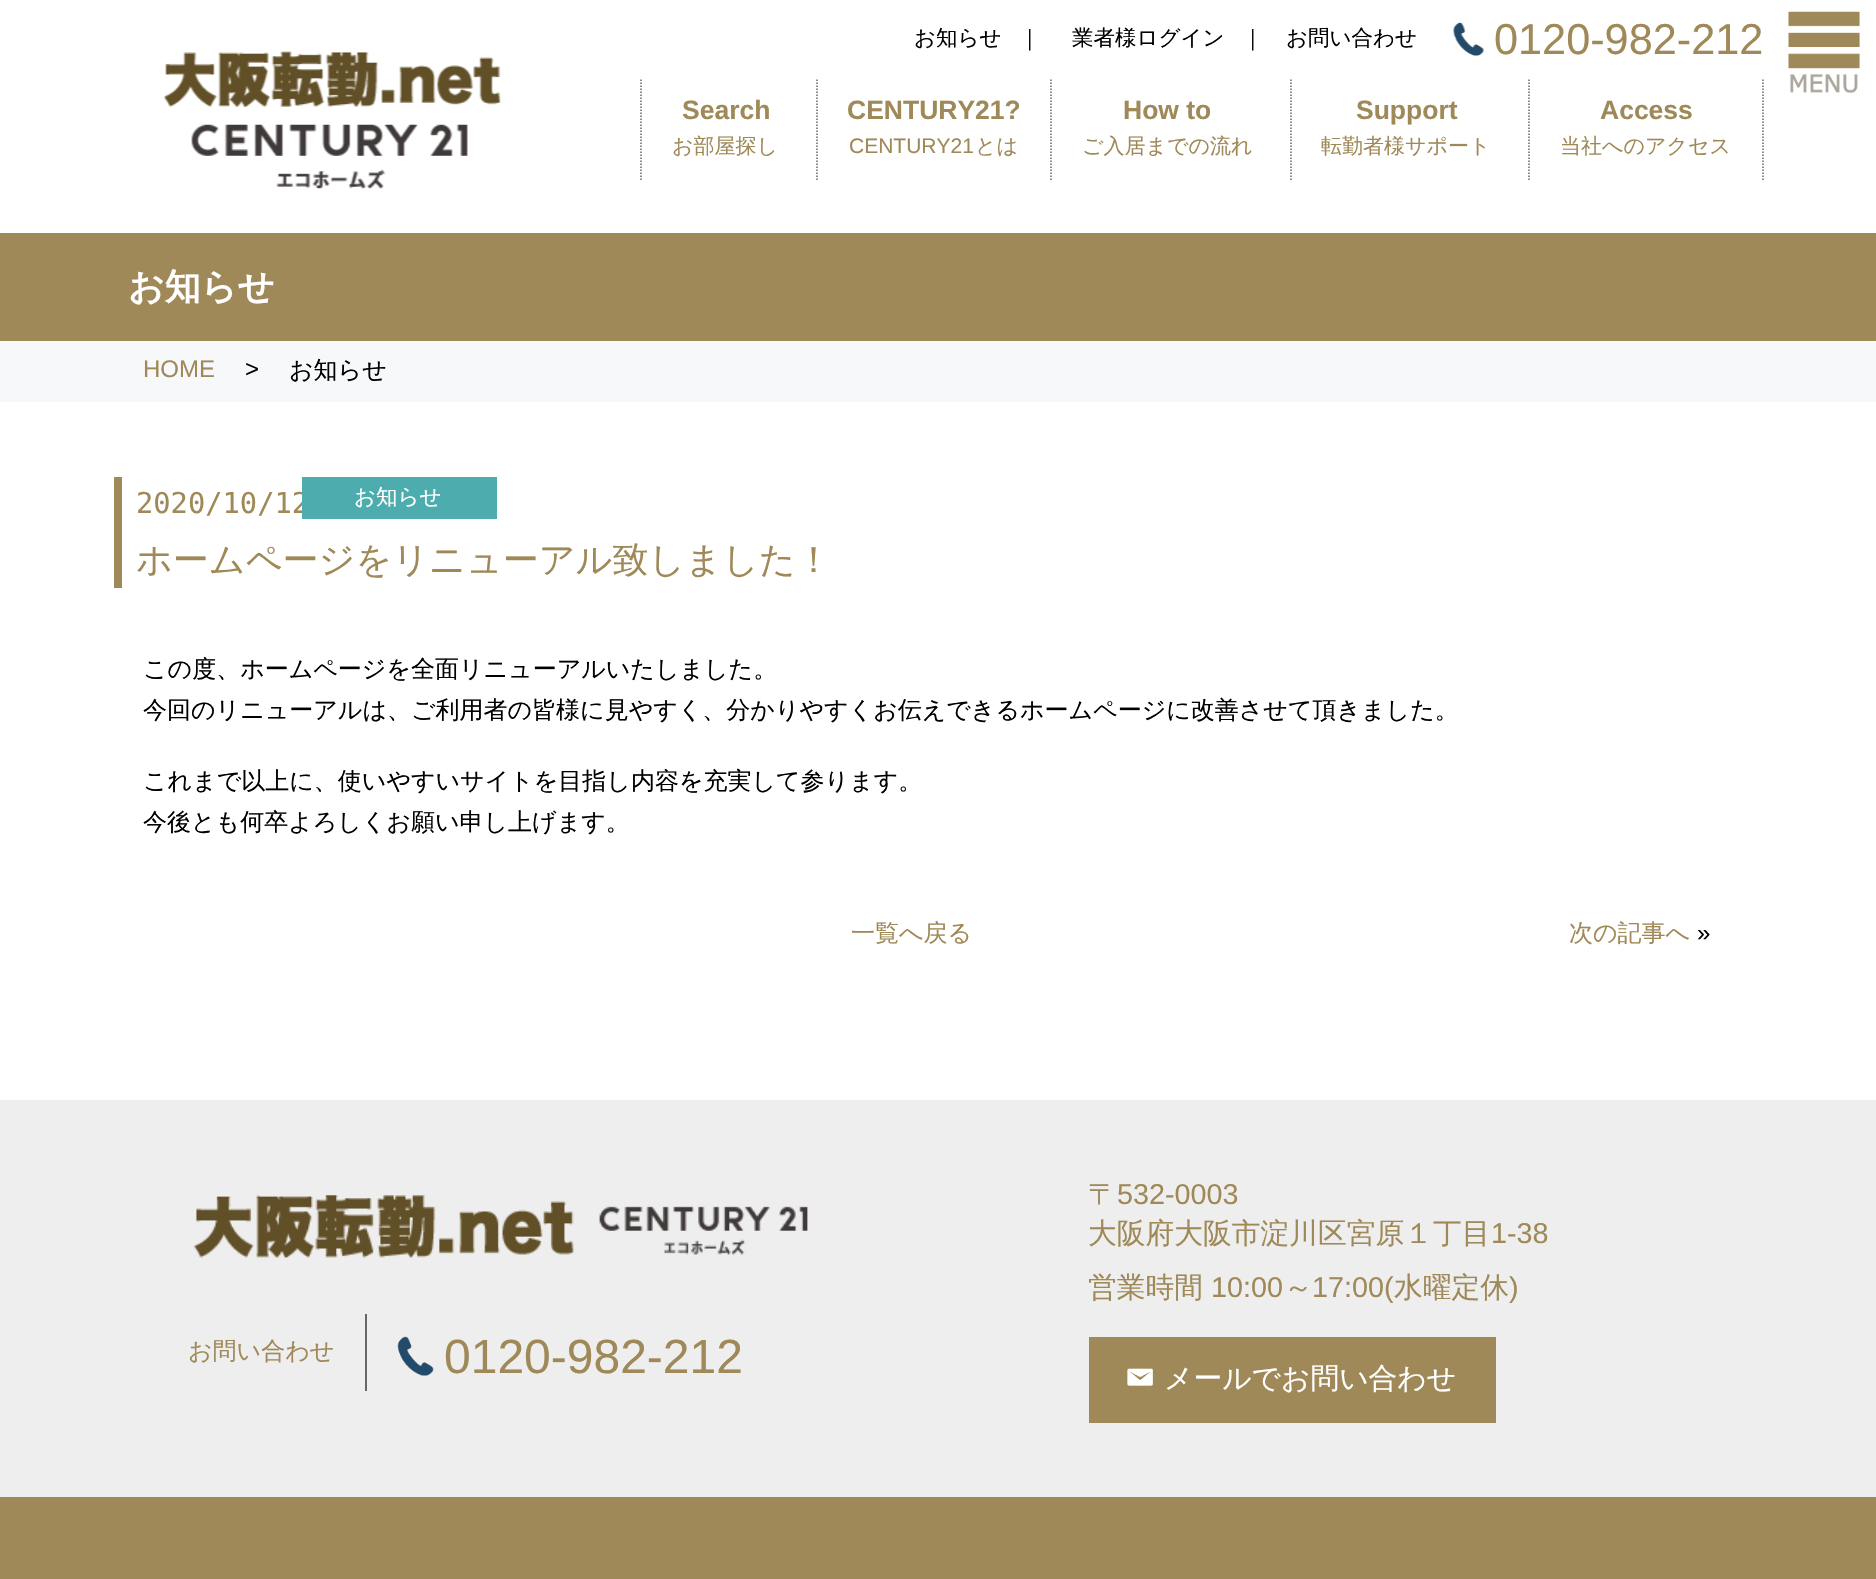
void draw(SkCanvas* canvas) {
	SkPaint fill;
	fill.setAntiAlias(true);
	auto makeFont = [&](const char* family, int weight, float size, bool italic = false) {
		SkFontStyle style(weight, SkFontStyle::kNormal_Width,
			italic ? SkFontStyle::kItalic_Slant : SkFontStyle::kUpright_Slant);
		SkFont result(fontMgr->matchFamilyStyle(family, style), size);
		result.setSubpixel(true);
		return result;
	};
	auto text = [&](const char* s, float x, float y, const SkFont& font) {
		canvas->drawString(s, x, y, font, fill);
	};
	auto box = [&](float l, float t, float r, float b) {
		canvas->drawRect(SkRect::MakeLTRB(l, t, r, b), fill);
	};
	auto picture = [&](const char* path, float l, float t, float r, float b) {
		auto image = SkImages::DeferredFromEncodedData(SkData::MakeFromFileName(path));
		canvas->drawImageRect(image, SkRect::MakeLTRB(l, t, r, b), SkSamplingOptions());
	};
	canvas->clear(0xFFFFFFFF);
	picture("image0.png", 164, 51, 501, 189);
	picture("image1.png", 1453, 22, 1484, 56);
	fill.setStyle(SkPaint::kStroke_Style);
	fill.setStrokeWidth(1.5f);
	fill.setColor(0xFF666666);
	fill.setPathEffect(SkDashPathEffect::Make({{1.5f, 1.5f}}, 0));
	canvas->drawPath(SkPathBuilder().moveTo(641, 79.5f).lineTo(641, 181.5f).detach(), fill);
	fill.setPathEffect(nullptr);
	fill.setPathEffect(SkDashPathEffect::Make({{1.5f, 1.5f}}, 0));
	canvas->drawPath(SkPathBuilder().moveTo(817, 79.5f).lineTo(817, 181.5f).detach(), fill);
	fill.setPathEffect(nullptr);
	fill.setPathEffect(SkDashPathEffect::Make({{1.5f, 1.5f}}, 0));
	canvas->drawPath(SkPathBuilder().moveTo(1051, 79.5f).lineTo(1051, 181.5f).detach(), fill);
	fill.setPathEffect(nullptr);
	fill.setPathEffect(SkDashPathEffect::Make({{1.5f, 1.5f}}, 0));
	canvas->drawPath(SkPathBuilder().moveTo(1291, 79.5f).lineTo(1291, 181.5f).detach(), fill);
	fill.setPathEffect(nullptr);
	fill.setPathEffect(SkDashPathEffect::Make({{1.5f, 1.5f}}, 0));
	canvas->drawPath(SkPathBuilder().moveTo(1763, 79.5f).lineTo(1763, 181.5f).detach(), fill);
	fill.setPathEffect(nullptr);
	fill.setPathEffect(SkDashPathEffect::Make({{1.5f, 1.5f}}, 0));
	canvas->drawPath(SkPathBuilder().moveTo(1529, 79.5f).lineTo(1529, 181.5f).detach(), fill);
	fill.setPathEffect(nullptr);
	picture("image2.png", 1788, 11, 1860, 93);
	fill.setStyle(SkPaint::kFill_Style);
	fill.setColor(0xFF9F8958);
	box(0, 233, 1876, 341);
	fill.setColor(0xFFF6F8FA);
	box(0, 341, 1876, 402);
	fill.setColor(0xFF9F8958);
	box(114, 477, 122, 588);
	fill.setColor(0xFFEEEEEE);
	box(0, 1100, 1876, 1497);
	picture("image3.png", 193, 1195, 808, 1258);
	fill.setColor(0xFF666666);
	box(365, 1314, 367, 1391);
	picture("image4.png", 397, 1336, 434, 1376);
	fill.setColor(0xFF9F8958);
	box(1089, 1337, 1496, 1423);
	picture("image5.png", 1127, 1368, 1153, 1386);
	box(0, 1497, 1876, 1579);
	auto font1 = makeFont("WenQuanYi Zen Hei", 500, 21.5f);
	fill.setColor(0xFF000000);
	text("お知らせ", 914, 45, font1);
	text("｜", 1019, 45, font1);
	text("業者様ログイン", 1072, 45, font1);
	text("｜", 1242, 45, font1);
	text("お問い合わせ", 1286, 45, font1);
	auto font2 = makeFont("Liberation Sans", 400, 43.25f);
	fill.setColor(0xFF9F8958);
	text("0120-982-212", 1494, 54, font2);
	auto font3 = makeFont("Liberation Sans", 700, 26.5f);
	text("Search", 682, 119, font3);
	auto font4 = makeFont("WenQuanYi Zen Hei", 500, 21);
	text("お部屋探し", 672, 153, font4);
	text("CENTURY21?", 847, 119, font3);
	auto font5 = makeFont("Liberation Sans", 400, 21);
	text("CENTURY21", 849, 153, font5);
	text("とは", 975, 153, font4);
	text("How to", 1123, 119, font3);
	text("ご入居までの流れ", 1082, 153, font4);
	text("Support", 1356, 119, font3);
	text("転勤者様サポート", 1321, 153, font4);
	text("Access", 1600, 119, font3);
	text("当社へのアクセス", 1560, 153, font4);
	auto font6 = makeFont("WenQuanYi Zen Hei", 700, 36);
	fill.setColor(0xFFFFFFFF);
	text("お知らせ", 128, 299, font6);
	auto font7 = makeFont("Liberation Sans", 400, 24);
	fill.setColor(0xFF9F8958);
	text("HOME", 143, 377, font7);
	fill.setColor(0xFF000000);
	text(">", 245, 377, font7);
	auto font8 = makeFont("WenQuanYi Zen Hei", 500, 24);
	text("お知らせ", 289, 378, font8);
	auto font9 = makeFont("DejaVu Sans Mono", 400, 28.75f);
	fill.setColor(0xFF9F8958);
	text("2020/10/12", 136, 513, font9);
	fill.setColor(0xFF4DACAD);
	box(302, 477, 497, 519);
	fill.setColor(0xFFFFFFFF);
	text("お知らせ", 354, 504, font1);
	auto font10 = makeFont("WenQuanYi Zen Hei", 500, 36);
	fill.setColor(0xFF9F8958);
	text("ホームページをリニューアル致しました！", 136, 572, font10);
	fill.setColor(0xFF000000);
	text("この度、ホームページを全面リニューアルいたしました。", 143, 677, font8);
	text("今回のリニューアルは、ご利用者の皆様に見やすく、分かりやすくお伝えできるホームページに改善させて頂きました。", 143, 718, font8);
	text("これまで以上に、使いやすいサイトを目指し内容を充実して参ります。", 143, 789, font8);
	text("今後とも何卒よろしくお願い申し上げます。", 143, 830, font8);
	fill.setColor(0xFF9F8958);
	text("一覧へ戻る", 851, 941, font8);
	text("次の記事へ", 1569, 941, font8);
	fill.setColor(0xFF000000);
	text("»", 1697, 941, font7);
	fill.setColor(0xFF9F8958);
	text("お問い合わせ", 188, 1359, font8);
	auto font11 = makeFont("Liberation Sans", 400, 48);
	text("0120-982-212", 444, 1373, font11);
	auto font12 = makeFont("WenQuanYi Zen Hei", 500, 28.75f);
	text("〒", 1088, 1204, font12);
	auto font13 = makeFont("Liberation Sans", 400, 28.75f);
	text("532-0003", 1117, 1204, font13);
	text("大阪府大阪市淀川区宮原１丁目", 1088, 1243, font12);
	text("1-38", 1491, 1243, font13);
	text("営業時間", 1088, 1297, font12);
	text("10:00", 1211, 1297, font13);
	text("～", 1284, 1297, font12);
	text("17:00(", 1312, 1297, font13);
	text("水曜定休", 1394, 1297, font12);
	text(")", 1509, 1297, font13);
	fill.setColor(0xFFFFFFFF);
	text("メールでお問い合わせ", 1164, 1388, font12);
}
